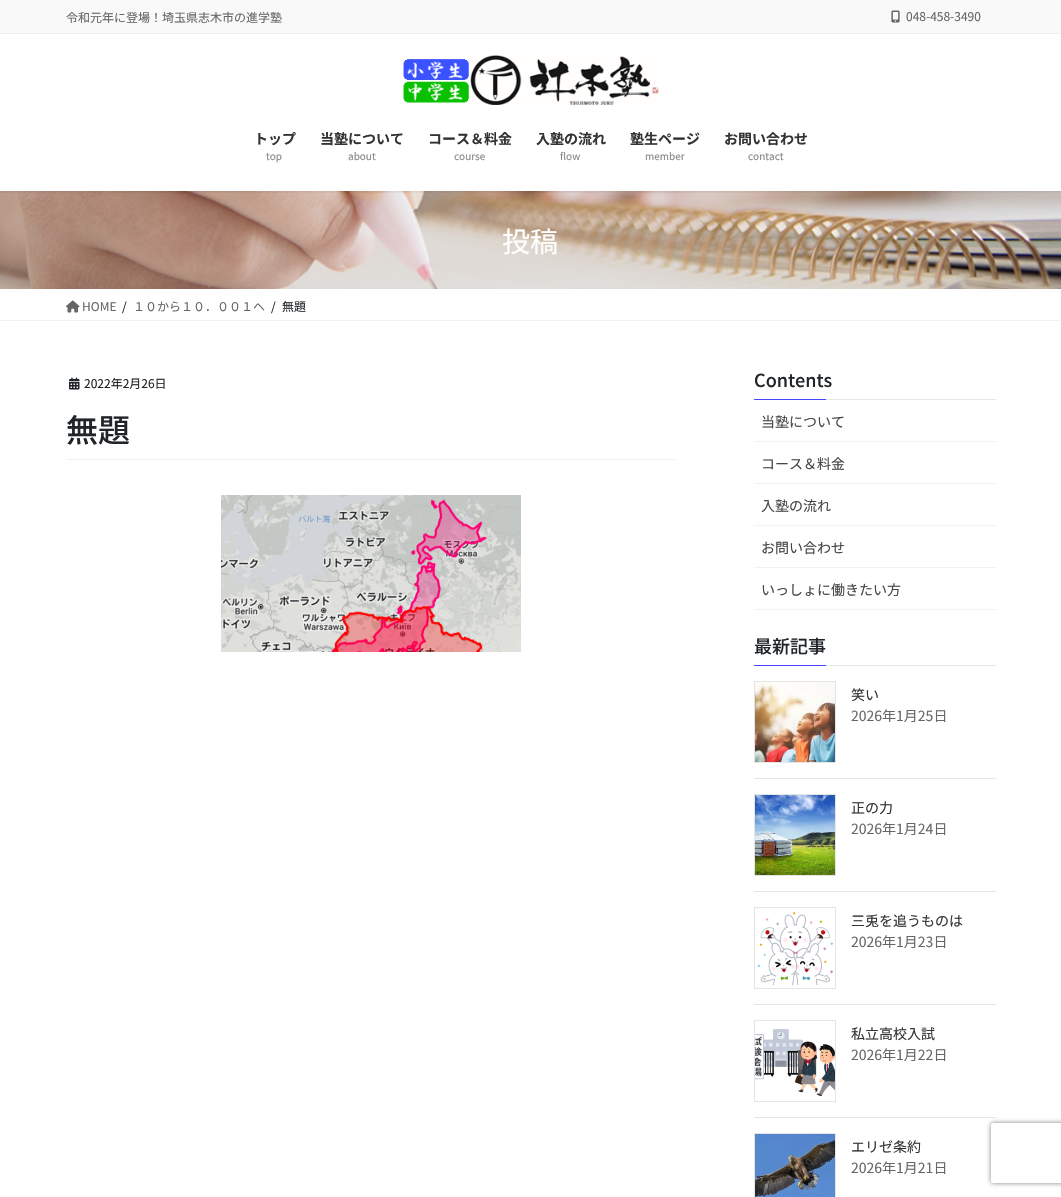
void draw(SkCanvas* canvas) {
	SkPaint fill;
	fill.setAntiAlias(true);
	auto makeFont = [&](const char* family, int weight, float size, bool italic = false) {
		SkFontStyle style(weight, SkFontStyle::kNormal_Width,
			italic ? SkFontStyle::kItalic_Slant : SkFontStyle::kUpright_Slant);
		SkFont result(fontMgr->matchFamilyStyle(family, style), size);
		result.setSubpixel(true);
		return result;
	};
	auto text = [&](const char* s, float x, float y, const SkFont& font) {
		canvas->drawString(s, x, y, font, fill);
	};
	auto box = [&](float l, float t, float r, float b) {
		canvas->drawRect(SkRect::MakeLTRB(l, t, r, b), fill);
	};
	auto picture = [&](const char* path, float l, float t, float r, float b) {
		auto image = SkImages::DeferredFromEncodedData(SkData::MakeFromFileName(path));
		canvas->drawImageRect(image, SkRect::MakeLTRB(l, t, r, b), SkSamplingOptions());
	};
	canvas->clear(0xFFFFFFFF);
	picture("image2.png", 0, 191, 1061, 289);
	canvas->save();
	canvas->clipRect(SkRect::MakeLTRB(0, 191, 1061, 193));
	fill.setColor(0x1A000000);
	fill.setMaskFilter(SkMaskFilter::MakeBlur(kNormal_SkBlurStyle, 1.5f));
	canvas->drawRect(SkRect::MakeLTRB(0, -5, 1061, 192), fill);
	fill.setMaskFilter(nullptr);
	canvas->restore();
	fill.setColor(0xFFF9F9F9);
	box(0, 0, 1061, 33);
	fill.setColor(0xFFEFEFEF);
	box(0, 33, 1061, 34);
	picture("image0.png", 891, 10, 900, 23);
	picture("image1.png", 403, 55, 659, 105);
	fill.setColor(0xFFF2F2F2);
	box(0, 320, 1061, 321);
	picture("image3.png", 66, 300, 80, 313);
	box(66, 459, 676, 460);
	picture("image4.png", 69, 377, 80, 390);
	picture("image5.png", 221, 495, 521, 652);
	fill.setColor(0xFFE6E6E6);
	box(826, 399, 996, 400);
	fill.setColor(0xFF4646FF);
	box(754, 399, 826, 400);
	fill.setColor(0xFFF2F2F2);
	box(754, 441, 996, 442);
	box(754, 483, 996, 484);
	box(754, 525, 996, 526);
	box(754, 567, 996, 568);
	box(754, 609, 996, 610);
	fill.setColor(0xFFE6E6E6);
	box(826, 665, 996, 666);
	fill.setColor(0xFF4646FF);
	box(754, 665, 826, 666);
	fill.setColor(0xFFE5E5E5);
	box(754, 778, 996, 779);
	fill.setStyle(SkPaint::kStroke_Style);
	fill.setStrokeWidth(1);
	canvas->drawRect(SkRect::MakeLTRB(754.5f, 681.5f, 835.5f, 762.5f), fill);
	picture("image6.png", 755, 682, 835, 762);
	fill.setStyle(SkPaint::kFill_Style);
	box(754, 891, 996, 892);
	fill.setStyle(SkPaint::kStroke_Style);
	canvas->drawRect(SkRect::MakeLTRB(754.5f, 794.5f, 835.5f, 875.5f), fill);
	picture("image7.png", 755, 795, 835, 875);
	fill.setStyle(SkPaint::kFill_Style);
	box(754, 1004, 996, 1005);
	fill.setStyle(SkPaint::kStroke_Style);
	canvas->drawRect(SkRect::MakeLTRB(754.5f, 907.5f, 835.5f, 988.5f), fill);
	picture("image8.png", 757, 912, 834, 986);
	fill.setStyle(SkPaint::kFill_Style);
	box(754, 1117, 996, 1118);
	fill.setStyle(SkPaint::kStroke_Style);
	canvas->drawRect(SkRect::MakeLTRB(754.5f, 1020.5f, 835.5f, 1101.5f), fill);
	picture("image9.png", 755, 1029, 835, 1096);
	canvas->drawRect(SkRect::MakeLTRB(754.5f, 1133.5f, 835.5f, 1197.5f), fill);
	picture("image10.png", 755, 1134, 835, 1197);
	canvas->save();
	canvas->clipPath(SkPathBuilder(SkPathFillType::kEvenOdd).moveTo(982, 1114).lineTo(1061, 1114).lineTo(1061, 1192).lineTo(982, 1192).close().moveTo(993, 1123).lineTo(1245, 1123).cubicTo(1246, 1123, 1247, 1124, 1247, 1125).lineTo(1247, 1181).cubicTo(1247, 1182, 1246, 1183, 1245, 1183).lineTo(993, 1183).cubicTo(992, 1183, 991, 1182, 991, 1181).lineTo(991, 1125).cubicTo(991, 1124, 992, 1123, 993, 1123).close().detach(), true);
	fill.setStyle(SkPaint::kFill_Style);
	fill.setColor(0xFF808080);
	fill.setMaskFilter(SkMaskFilter::MakeBlur(kNormal_SkBlurStyle, 2.5f));
	canvas->drawRoundRect(SkRect::MakeLTRB(991, 1123, 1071, 1183), 2, 2, fill);
	fill.setMaskFilter(nullptr);
	canvas->restore();
	auto font1 = makeFont("Noto Sans JP", 400, 12);
	fill.setColor(0xFF666666);
	text("令和元年に登場！埼玉県志木市の進学塾", 66, 22, font1);
	text("048-458-3490", 906, 21, font1);
	auto font2 = makeFont("Noto Sans JP", 700, 14);
	fill.setColor(0xFF333333);
	text("トップ", 254, 144, font2);
	auto font3 = makeFont("Noto Sans JP", 400, 10);
	fill.setColor(0xFF858585);
	text("top", 266, 160, font3);
	fill.setColor(0xFF333333);
	text("当塾について", 320, 144, font2);
	fill.setColor(0xFF858585);
	text("about", 348, 160, font3);
	fill.setColor(0xFF333333);
	text("コース＆料金", 428, 144, font2);
	fill.setColor(0xFF858585);
	text("course", 454, 160, font3);
	fill.setColor(0xFF333333);
	text("入塾の流れ", 536, 144, font2);
	fill.setColor(0xFF858585);
	text("flow", 560, 160, font3);
	fill.setColor(0xFF333333);
	text("塾生ページ", 630, 144, font2);
	fill.setColor(0xFF858585);
	text("member", 645, 160, font3);
	fill.setColor(0xFF333333);
	text("お問い合わせ", 724, 144, font2);
	fill.setColor(0xFF858585);
	text("contact", 748, 160, font3);
	auto font4 = makeFont("Noto Sans JP", 400, 28);
	fill.setColor(0xFFFFFFFF);
	text("投稿", 502, 252, font4);
	fill.setColor(0xFF666666);
	text("HOME", 82, 311, font1);
	fill.setColor(0xFF212529);
	text("/", 122, 311, font1);
	fill.setColor(0xFF666666);
	text("１０から１０．００１へ", 133, 311, font1);
	fill.setColor(0xFF212529);
	text("/", 271, 311, font1);
	text("無題", 282, 311, font1);
	text("2022年2月26日", 84, 388, font1);
	auto font5 = makeFont("Noto Sans JP", 500, 32);
	text("無題", 66, 442, font5);
	auto font6 = makeFont("Noto Sans JP", 500, 18);
	text("Contents", 754, 387, font6);
	auto font7 = makeFont("Noto Sans JP", 400, 14);
	fill.setColor(0xFF464646);
	text("当塾について", 761, 427, font7);
	text("コース＆料金", 761, 469, font7);
	text("入塾の流れ", 761, 511, font7);
	text("お問い合わせ", 761, 553, font7);
	text("いっしょに働きたい方", 761, 595, font7);
	fill.setColor(0xFF212529);
	text("最新記事", 754, 653, font6);
	fill.setColor(0xFF333333);
	text("笑い", 851, 700, font7);
	fill.setColor(0xFF666666);
	text("2026年1月25日", 851, 721, font7);
	fill.setColor(0xFF333333);
	text("正の力", 851, 813, font7);
	fill.setColor(0xFF666666);
	text("2026年1月24日", 851, 834, font7);
	fill.setColor(0xFF333333);
	text("三兎を追うものは", 851, 926, font7);
	fill.setColor(0xFF666666);
	text("2026年1月23日", 851, 947, font7);
	fill.setColor(0xFF333333);
	text("私立高校入試", 851, 1039, font7);
	fill.setColor(0xFF666666);
	text("2026年1月22日", 851, 1060, font7);
	fill.setColor(0xFF333333);
	text("エリゼ条約", 851, 1152, font7);
	fill.setColor(0xFF666666);
	text("2026年1月21日", 851, 1173, font7);
}
